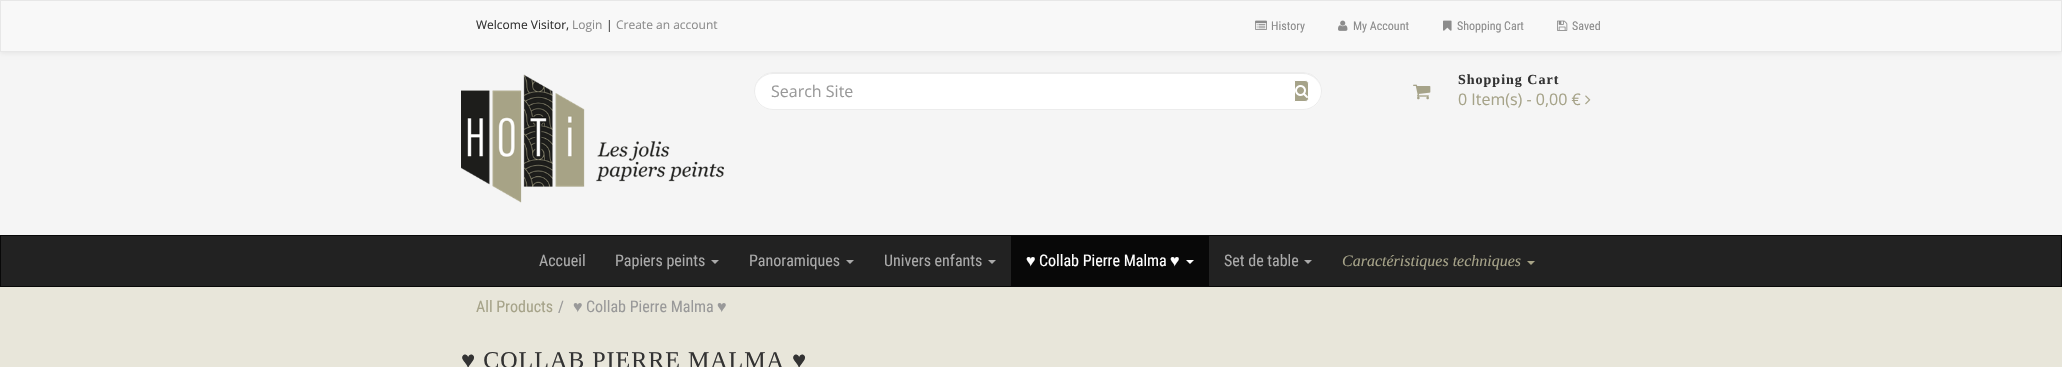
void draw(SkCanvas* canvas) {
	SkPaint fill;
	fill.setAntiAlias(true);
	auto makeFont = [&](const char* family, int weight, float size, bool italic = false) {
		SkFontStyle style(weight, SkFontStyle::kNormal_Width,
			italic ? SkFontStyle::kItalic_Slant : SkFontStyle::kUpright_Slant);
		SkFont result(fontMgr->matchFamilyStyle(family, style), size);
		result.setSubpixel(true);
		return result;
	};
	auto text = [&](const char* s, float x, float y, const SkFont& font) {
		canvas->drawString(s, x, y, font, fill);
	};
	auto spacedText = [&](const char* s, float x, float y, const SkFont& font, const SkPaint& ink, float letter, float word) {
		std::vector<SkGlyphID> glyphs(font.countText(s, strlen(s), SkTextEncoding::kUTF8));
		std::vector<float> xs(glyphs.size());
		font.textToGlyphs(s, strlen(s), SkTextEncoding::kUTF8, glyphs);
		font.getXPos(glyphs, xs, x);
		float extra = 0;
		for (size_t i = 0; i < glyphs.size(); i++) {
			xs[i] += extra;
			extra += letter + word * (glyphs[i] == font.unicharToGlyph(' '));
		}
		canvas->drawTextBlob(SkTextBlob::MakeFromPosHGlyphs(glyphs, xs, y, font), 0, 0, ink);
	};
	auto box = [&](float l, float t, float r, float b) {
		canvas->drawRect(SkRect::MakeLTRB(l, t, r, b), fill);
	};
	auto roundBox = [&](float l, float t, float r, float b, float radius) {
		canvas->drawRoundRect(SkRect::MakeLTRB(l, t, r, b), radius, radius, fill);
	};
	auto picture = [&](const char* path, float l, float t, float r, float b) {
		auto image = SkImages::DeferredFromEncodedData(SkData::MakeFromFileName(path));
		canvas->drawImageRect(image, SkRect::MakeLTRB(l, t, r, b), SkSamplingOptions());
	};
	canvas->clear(0xFFE8E6DA);
	fill.setColor(0xFFF5F5F5);
	box(0, 52, 2062, 235);
	fill.setColor(0x12000000);
	fill.setMaskFilter(SkMaskFilter::MakeBlur(kNormal_SkBlurStyle, 2.5f));
	canvas->drawRect(SkRect::MakeLTRB(0, 1, 2062, 53), fill);
	fill.setMaskFilter(nullptr);
	fill.setColor(0xFFF8F8F8);
	canvas->drawRect(SkRect::MakeLTRB(0.5f, 0.5f, 2061.5f, 51.5f), fill);
	fill.setStyle(SkPaint::kStroke_Style);
	fill.setStrokeWidth(1);
	fill.setColor(0xFFE7E7E7);
	canvas->drawRect(SkRect::MakeLTRB(0.5f, 0.5f, 2061.5f, 51.5f), fill);
	picture("image0.png", 1255, 20, 1267, 30);
	picture("image1.png", 1338, 20, 1348, 31);
	picture("image2.png", 1443, 20, 1452, 31);
	picture("image3.png", 1557, 20, 1568, 31);
	picture("image4.png", 461, 74, 724, 203);
	fill.setStyle(SkPaint::kFill_Style);
	fill.setColor(0xFFFFFFFF);
	roundBox(754, 72, 1322, 110, 19);
	fill.setColor(0xFFECECEC);
	canvas->drawPath(SkPathBuilder().moveTo(773, 74).lineTo(1303, 74).cubicTo(1313, 74, 1321, 82, 1321, 91).cubicTo(1321, 81, 1313, 73, 1303, 73).lineTo(773, 73).cubicTo(769, 73, 766, 74, 763, 76).cubicTo(758, 79, 755, 85, 755, 91).cubicTo(755, 82, 763, 74, 773, 74).close().detach(), fill);
	fill.setStyle(SkPaint::kStroke_Style);
	canvas->drawRoundRect(SkRect::MakeLTRB(754.5f, 72.5f, 1321.5f, 109.5f), 18.5f, 18.5f, fill);
	fill.setStyle(SkPaint::kFill_Style);
	fill.setColor(0xFFA6A389);
	canvas->drawPath(SkPathBuilder().moveTo(1294.5f, 80.5f).lineTo(1305, 80.5f).cubicTo(1307, 80.5f, 1308.5f, 82, 1308.5f, 84).lineTo(1308.5f, 98).cubicTo(1308.5f, 100, 1307, 101.5f, 1305, 101.5f).lineTo(1294.5f, 101.5f).close().detach(), fill);
	fill.setStyle(SkPaint::kStroke_Style);
	fill.setColor(0xFFFFFFFF);
	canvas->drawPath(SkPathBuilder().moveTo(1294.5f, 80.5f).lineTo(1305, 80.5f).cubicTo(1307, 80.5f, 1308.5f, 82, 1308.5f, 84).lineTo(1308.5f, 98).cubicTo(1308.5f, 100, 1307, 101.5f, 1305, 101.5f).lineTo(1294.5f, 101.5f).close().detach(), fill);
	picture("image5.png", 1295, 85, 1308, 98);
	picture("image6.png", 1413, 84, 1431, 100);
	picture("image7.png", 1585, 95, 1591, 105);
	fill.setStyle(SkPaint::kFill_Style);
	fill.setColor(0xFF222222);
	canvas->drawRect(SkRect::MakeLTRB(0.5f, 235.5f, 2061.5f, 286.5f), fill);
	fill.setStyle(SkPaint::kStroke_Style);
	fill.setColor(0xFF080808);
	canvas->drawRect(SkRect::MakeLTRB(0.5f, 235.5f, 2061.5f, 286.5f), fill);
	fill.setStyle(SkPaint::kFill_Style);
	fill.setColor(0xFFAAAAAA);
	canvas->drawPath(SkPathBuilder().moveTo(711, 260).lineTo(719, 260).lineTo(715, 264).close().detach(), fill);
	canvas->drawPath(SkPathBuilder().moveTo(846, 260).lineTo(854, 260).lineTo(850, 264).close().detach(), fill);
	canvas->drawPath(SkPathBuilder().moveTo(988, 260).lineTo(996, 260).lineTo(992, 264).close().detach(), fill);
	fill.setColor(0xFF080808);
	box(1011, 236, 1209, 286);
	fill.setColor(0xFFFFFFFF);
	canvas->drawPath(SkPathBuilder().moveTo(1186, 260).lineTo(1194, 260).lineTo(1190, 264).close().detach(), fill);
	fill.setColor(0xFFAAAAAA);
	canvas->drawPath(SkPathBuilder().moveTo(1304, 260).lineTo(1312, 260).lineTo(1308, 264).close().detach(), fill);
	fill.setColor(0xFFA7A386);
	canvas->drawPath(SkPathBuilder().moveTo(1527, 261).lineTo(1535, 261).lineTo(1531, 265).close().detach(), fill);
	auto font1 = makeFont("Open Sans", 400, 12);
	fill.setColor(0xFF333333);
	text("Welcome Visitor,", 476, 29, font1);
	fill.setColor(0xFF8C8C8C);
	text("Login", 572, 29, font1);
	fill.setColor(0xFF333333);
	text("|", 606, 29, font1);
	fill.setColor(0xFF8C8C8C);
	text("Create an account", 616, 29, font1);
	auto font2 = makeFont("Roboto Condensed", 400, 12);
	text("History", 1271, 30, font2);
	text("My Account", 1353, 30, font2);
	text("Shopping Cart", 1457, 30, font2);
	text("Saved", 1572, 30, font2);
	auto font3 = makeFont("Open Sans", 400, 16);
	fill.setColor(0xFF999999);
	text("Search Site", 771, 97, font3);
	auto font4 = makeFont("Liberation Serif", 700, 14);
	fill.setColor(0xFF333333);
	spacedText("Shopping Cart", 1458, 84, font4, fill, 1, 0);
	fill.setColor(0xFFA6A389);
	text("0 Item(s) - 0,00 €", 1458, 105, font3);
	auto font5 = makeFont("Roboto Condensed", 400, 16);
	fill.setColor(0xFFAAAAAA);
	text("Accueil", 539, 266, font5);
	text("Papiers peints", 615, 266, font5);
	text("Panoramiques", 749, 266, font5);
	text("Univers enfants", 884, 266, font5);
	auto font6 = makeFont("Liberation Sans", 400, 16);
	fill.setColor(0xFFFFFFFF);
	text("♥", 1026, 266, font6);
	text("Collab Pierre Malma", 1039, 266, font5);
	text("♥", 1170, 266, font6);
	fill.setColor(0xFFAAAAAA);
	text("Set de table", 1224, 266, font5);
	auto font7 = makeFont("Liberation Serif", 400, 16, true);
	fill.setColor(0xFFA6A389);
	text("Caractéristiques techniques", 1342, 266, font7);
	text("All Products", 476, 312, font5);
	fill.setColor(0xFF999999);
	text("/", 558, 312, font5);
	text("♥", 573, 312, font6);
	text("Collab Pierre Malma", 586, 312, font5);
	text("♥", 717, 312, font6);
	auto font8 = makeFont("Liberation Serif", 400, 24);
	fill.setColor(0xFF333333);
	spacedText("♥ COLLAB PIERRE MALMA ♥", 461, 368, font8, fill, 1, 0);
}
